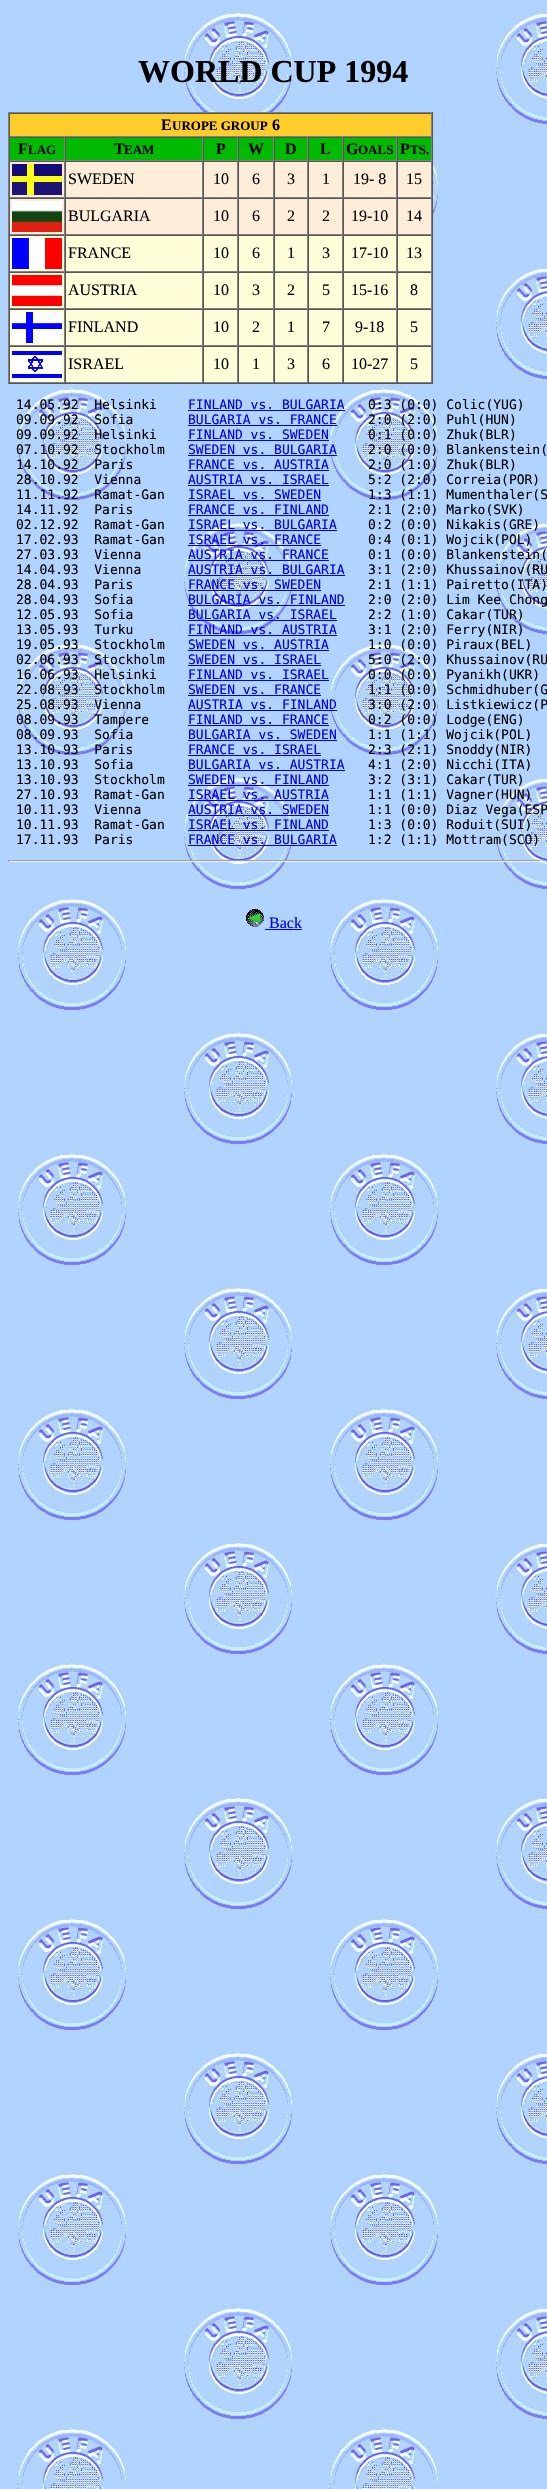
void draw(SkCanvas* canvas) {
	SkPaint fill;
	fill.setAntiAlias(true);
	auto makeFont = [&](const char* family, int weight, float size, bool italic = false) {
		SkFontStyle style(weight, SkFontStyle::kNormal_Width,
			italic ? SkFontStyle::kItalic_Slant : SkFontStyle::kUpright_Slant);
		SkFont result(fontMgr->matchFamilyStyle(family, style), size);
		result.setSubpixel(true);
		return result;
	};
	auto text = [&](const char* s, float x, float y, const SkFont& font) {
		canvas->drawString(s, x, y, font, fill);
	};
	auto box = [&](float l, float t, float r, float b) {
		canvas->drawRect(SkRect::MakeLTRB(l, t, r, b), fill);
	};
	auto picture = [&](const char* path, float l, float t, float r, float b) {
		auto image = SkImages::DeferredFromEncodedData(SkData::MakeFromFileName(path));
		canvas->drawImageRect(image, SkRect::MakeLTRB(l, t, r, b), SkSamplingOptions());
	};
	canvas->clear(0xFFFFFFFF);
	picture("image0.png", 0, 0, 547, 2489);
	fill.setColor(0xFF808080);
	box(8, 112, 433, 113);
	fill.setColor(0xFF555555);
	box(432, 112, 433, 384);
	box(8, 383, 433, 384);
	fill.setColor(0xFF808080);
	box(8, 112, 9, 384);
	fill.setColor(0xFFFFCD29);
	box(10, 114, 431, 136);
	fill.setColor(0xFF555555);
	box(9, 113, 432, 114);
	fill.setColor(0xFF808080);
	box(431, 113, 432, 137);
	box(9, 136, 432, 137);
	fill.setColor(0xFF555555);
	box(9, 113, 10, 137);
	fill.setColor(0xFF00BB00);
	box(10, 138, 431, 160);
	fill.setColor(0xFF555555);
	box(9, 137, 432, 138);
	fill.setColor(0xFF808080);
	box(64, 137, 65, 161);
	box(9, 160, 65, 161);
	fill.setColor(0xFF555555);
	box(9, 137, 10, 161);
	fill.setColor(0xFF808080);
	box(202, 137, 203, 161);
	box(65, 160, 203, 161);
	fill.setColor(0xFF555555);
	box(65, 137, 66, 161);
	fill.setColor(0xFF808080);
	box(237, 137, 238, 161);
	box(203, 160, 238, 161);
	fill.setColor(0xFF555555);
	box(203, 137, 204, 161);
	fill.setColor(0xFF808080);
	box(273, 137, 274, 161);
	box(238, 160, 274, 161);
	fill.setColor(0xFF555555);
	box(238, 137, 239, 161);
	fill.setColor(0xFF808080);
	box(307, 137, 308, 161);
	box(274, 160, 308, 161);
	fill.setColor(0xFF555555);
	box(274, 137, 275, 161);
	fill.setColor(0xFF808080);
	box(342, 137, 343, 161);
	box(308, 160, 343, 161);
	fill.setColor(0xFF555555);
	box(308, 137, 309, 161);
	fill.setColor(0xFF808080);
	box(396, 137, 397, 161);
	box(343, 160, 397, 161);
	fill.setColor(0xFF555555);
	box(343, 137, 344, 161);
	fill.setColor(0xFF808080);
	box(431, 137, 432, 161);
	box(397, 160, 432, 161);
	fill.setColor(0xFF555555);
	box(397, 137, 398, 161);
	fill.setColor(0xFFFEEED9);
	box(10, 162, 431, 197);
	fill.setColor(0xFF555555);
	box(9, 161, 432, 162);
	fill.setColor(0xFF808080);
	box(64, 161, 65, 198);
	box(9, 197, 65, 198);
	fill.setColor(0xFF555555);
	box(9, 161, 10, 198);
	picture("image1.png", 12, 164, 62, 195);
	fill.setColor(0xFF808080);
	box(202, 161, 203, 198);
	box(65, 197, 203, 198);
	fill.setColor(0xFF555555);
	box(65, 161, 66, 198);
	fill.setColor(0xFF808080);
	box(237, 161, 238, 198);
	box(203, 197, 238, 198);
	fill.setColor(0xFF555555);
	box(203, 161, 204, 198);
	fill.setColor(0xFF808080);
	box(273, 161, 274, 198);
	box(238, 197, 274, 198);
	fill.setColor(0xFF555555);
	box(238, 161, 239, 198);
	fill.setColor(0xFF808080);
	box(307, 161, 308, 198);
	box(274, 197, 308, 198);
	fill.setColor(0xFF555555);
	box(274, 161, 275, 198);
	fill.setColor(0xFF808080);
	box(342, 161, 343, 198);
	box(308, 197, 343, 198);
	fill.setColor(0xFF555555);
	box(308, 161, 309, 198);
	fill.setColor(0xFF808080);
	box(396, 161, 397, 198);
	box(343, 197, 397, 198);
	fill.setColor(0xFF555555);
	box(343, 161, 344, 198);
	fill.setColor(0xFF808080);
	box(431, 161, 432, 198);
	box(397, 197, 432, 198);
	fill.setColor(0xFF555555);
	box(397, 161, 398, 198);
	fill.setColor(0xFFFEEED9);
	box(10, 199, 431, 234);
	fill.setColor(0xFF555555);
	box(9, 198, 432, 199);
	fill.setColor(0xFF808080);
	box(64, 198, 65, 235);
	box(9, 234, 65, 235);
	fill.setColor(0xFF555555);
	box(9, 198, 10, 235);
	picture("image2.png", 12, 201, 62, 232);
	fill.setColor(0xFF808080);
	box(202, 198, 203, 235);
	box(65, 234, 203, 235);
	fill.setColor(0xFF555555);
	box(65, 198, 66, 235);
	fill.setColor(0xFF808080);
	box(237, 198, 238, 235);
	box(203, 234, 238, 235);
	fill.setColor(0xFF555555);
	box(203, 198, 204, 235);
	fill.setColor(0xFF808080);
	box(273, 198, 274, 235);
	box(238, 234, 274, 235);
	fill.setColor(0xFF555555);
	box(238, 198, 239, 235);
	fill.setColor(0xFF808080);
	box(307, 198, 308, 235);
	box(274, 234, 308, 235);
	fill.setColor(0xFF555555);
	box(274, 198, 275, 235);
	fill.setColor(0xFF808080);
	box(342, 198, 343, 235);
	box(308, 234, 343, 235);
	fill.setColor(0xFF555555);
	box(308, 198, 309, 235);
	fill.setColor(0xFF808080);
	box(396, 198, 397, 235);
	box(343, 234, 397, 235);
	fill.setColor(0xFF555555);
	box(343, 198, 344, 235);
	fill.setColor(0xFF808080);
	box(431, 198, 432, 235);
	box(397, 234, 432, 235);
	fill.setColor(0xFF555555);
	box(397, 198, 398, 235);
	fill.setColor(0xFFFEFFD9);
	box(10, 236, 431, 271);
	fill.setColor(0xFF555555);
	box(9, 235, 432, 236);
	fill.setColor(0xFF808080);
	box(64, 235, 65, 272);
	box(9, 271, 65, 272);
	fill.setColor(0xFF555555);
	box(9, 235, 10, 272);
	picture("image3.png", 12, 238, 62, 269);
	fill.setColor(0xFF808080);
	box(202, 235, 203, 272);
	box(65, 271, 203, 272);
	fill.setColor(0xFF555555);
	box(65, 235, 66, 272);
	fill.setColor(0xFF808080);
	box(237, 235, 238, 272);
	box(203, 271, 238, 272);
	fill.setColor(0xFF555555);
	box(203, 235, 204, 272);
	fill.setColor(0xFF808080);
	box(273, 235, 274, 272);
	box(238, 271, 274, 272);
	fill.setColor(0xFF555555);
	box(238, 235, 239, 272);
	fill.setColor(0xFF808080);
	box(307, 235, 308, 272);
	box(274, 271, 308, 272);
	fill.setColor(0xFF555555);
	box(274, 235, 275, 272);
	fill.setColor(0xFF808080);
	box(342, 235, 343, 272);
	box(308, 271, 343, 272);
	fill.setColor(0xFF555555);
	box(308, 235, 309, 272);
	fill.setColor(0xFF808080);
	box(396, 235, 397, 272);
	box(343, 271, 397, 272);
	fill.setColor(0xFF555555);
	box(343, 235, 344, 272);
	fill.setColor(0xFF808080);
	box(431, 235, 432, 272);
	box(397, 271, 432, 272);
	fill.setColor(0xFF555555);
	box(397, 235, 398, 272);
	fill.setColor(0xFFFEFFD9);
	box(10, 273, 431, 308);
	fill.setColor(0xFF555555);
	box(9, 272, 432, 273);
	fill.setColor(0xFF808080);
	box(64, 272, 65, 309);
	box(9, 308, 65, 309);
	fill.setColor(0xFF555555);
	box(9, 272, 10, 309);
	picture("image4.png", 12, 275, 62, 306);
	fill.setColor(0xFF808080);
	box(202, 272, 203, 309);
	box(65, 308, 203, 309);
	fill.setColor(0xFF555555);
	box(65, 272, 66, 309);
	fill.setColor(0xFF808080);
	box(237, 272, 238, 309);
	box(203, 308, 238, 309);
	fill.setColor(0xFF555555);
	box(203, 272, 204, 309);
	fill.setColor(0xFF808080);
	box(273, 272, 274, 309);
	box(238, 308, 274, 309);
	fill.setColor(0xFF555555);
	box(238, 272, 239, 309);
	fill.setColor(0xFF808080);
	box(307, 272, 308, 309);
	box(274, 308, 308, 309);
	fill.setColor(0xFF555555);
	box(274, 272, 275, 309);
	fill.setColor(0xFF808080);
	box(342, 272, 343, 309);
	box(308, 308, 343, 309);
	fill.setColor(0xFF555555);
	box(308, 272, 309, 309);
	fill.setColor(0xFF808080);
	box(396, 272, 397, 309);
	box(343, 308, 397, 309);
	fill.setColor(0xFF555555);
	box(343, 272, 344, 309);
	fill.setColor(0xFF808080);
	box(431, 272, 432, 309);
	box(397, 308, 432, 309);
	fill.setColor(0xFF555555);
	box(397, 272, 398, 309);
	fill.setColor(0xFFFEFFD9);
	box(10, 310, 431, 345);
	fill.setColor(0xFF555555);
	box(9, 309, 432, 310);
	fill.setColor(0xFF808080);
	box(64, 309, 65, 346);
	box(9, 345, 65, 346);
	fill.setColor(0xFF555555);
	box(9, 309, 10, 346);
	picture("image5.png", 12, 312, 62, 343);
	fill.setColor(0xFF808080);
	box(202, 309, 203, 346);
	box(65, 345, 203, 346);
	fill.setColor(0xFF555555);
	box(65, 309, 66, 346);
	fill.setColor(0xFF808080);
	box(237, 309, 238, 346);
	box(203, 345, 238, 346);
	fill.setColor(0xFF555555);
	box(203, 309, 204, 346);
	fill.setColor(0xFF808080);
	box(273, 309, 274, 346);
	box(238, 345, 274, 346);
	fill.setColor(0xFF555555);
	box(238, 309, 239, 346);
	fill.setColor(0xFF808080);
	box(307, 309, 308, 346);
	box(274, 345, 308, 346);
	fill.setColor(0xFF555555);
	box(274, 309, 275, 346);
	fill.setColor(0xFF808080);
	box(342, 309, 343, 346);
	box(308, 345, 343, 346);
	fill.setColor(0xFF555555);
	box(308, 309, 309, 346);
	fill.setColor(0xFF808080);
	box(396, 309, 397, 346);
	box(343, 345, 397, 346);
	fill.setColor(0xFF555555);
	box(343, 309, 344, 346);
	fill.setColor(0xFF808080);
	box(431, 309, 432, 346);
	box(397, 345, 432, 346);
	fill.setColor(0xFF555555);
	box(397, 309, 398, 346);
	fill.setColor(0xFFFEFFD9);
	box(10, 347, 431, 382);
	fill.setColor(0xFF555555);
	box(9, 346, 432, 347);
	fill.setColor(0xFF808080);
	box(64, 346, 65, 383);
	box(9, 382, 65, 383);
	fill.setColor(0xFF555555);
	box(9, 346, 10, 383);
	picture("image6.png", 12, 349, 62, 380);
	fill.setColor(0xFF808080);
	box(202, 346, 203, 383);
	box(65, 382, 203, 383);
	fill.setColor(0xFF555555);
	box(65, 346, 66, 383);
	fill.setColor(0xFF808080);
	box(237, 346, 238, 383);
	box(203, 382, 238, 383);
	fill.setColor(0xFF555555);
	box(203, 346, 204, 383);
	fill.setColor(0xFF808080);
	box(273, 346, 274, 383);
	box(238, 382, 274, 383);
	fill.setColor(0xFF555555);
	box(238, 346, 239, 383);
	fill.setColor(0xFF808080);
	box(307, 346, 308, 383);
	box(274, 382, 308, 383);
	fill.setColor(0xFF555555);
	box(274, 346, 275, 383);
	fill.setColor(0xFF808080);
	box(342, 346, 343, 383);
	box(308, 382, 343, 383);
	fill.setColor(0xFF555555);
	box(308, 346, 309, 383);
	fill.setColor(0xFF808080);
	box(396, 346, 397, 383);
	box(343, 382, 397, 383);
	fill.setColor(0xFF555555);
	box(343, 346, 344, 383);
	fill.setColor(0xFF808080);
	box(431, 346, 432, 383);
	box(397, 382, 432, 383);
	fill.setColor(0xFF555555);
	box(397, 346, 398, 383);
	fill.setColor(0xFF0000EE);
	box(188, 410, 345, 411);
	box(188, 425, 337, 426);
	box(188, 440, 329, 441);
	box(188, 455, 337, 456);
	box(188, 470, 329, 471);
	box(188, 485, 329, 486);
	box(188, 500, 321, 501);
	box(188, 515, 329, 516);
	box(188, 530, 337, 531);
	box(188, 545, 321, 546);
	box(188, 560, 329, 561);
	box(188, 575, 345, 576);
	box(188, 590, 321, 591);
	box(188, 605, 345, 606);
	box(188, 620, 337, 621);
	box(188, 635, 337, 636);
	box(188, 650, 329, 651);
	box(188, 665, 321, 666);
	box(188, 680, 329, 681);
	box(188, 695, 321, 696);
	box(188, 710, 337, 711);
	box(188, 725, 329, 726);
	box(188, 740, 337, 741);
	box(188, 755, 321, 756);
	box(188, 770, 345, 771);
	box(188, 785, 329, 786);
	box(188, 800, 329, 801);
	box(188, 815, 329, 816);
	box(188, 830, 329, 831);
	box(188, 845, 337, 846);
	fill.setColor(0xFF9F9F9F);
	box(8, 860, 541, 861);
	fill.setColor(0xFFEEEEEE);
	box(540, 860, 541, 862);
	box(8, 861, 541, 862);
	fill.setColor(0xFF9F9F9F);
	box(8, 860, 9, 862);
	picture("image7.png", 246, 909, 264, 927);
	fill.setColor(0xFF0000EE);
	box(265, 929, 302, 930);
	auto font1 = makeFont("Liberation Serif", 700, 32);
	fill.setColor(0xFF000000);
	text("WORLD CUP 1994", 138, 82, font1);
	auto font2 = makeFont("Liberation Serif", 700, 16);
	text("E", 161, 130, font2);
	auto font3 = makeFont("Liberation Serif", 700, 13);
	text("UROPE GROUP", 172, 130, font3);
	text("6", 272, 130, font2);
	text("F", 18, 154, font2);
	text("LAG", 28, 154, font3);
	text("T", 114, 154, font2);
	text("EAM", 124, 154, font3);
	text("P", 216, 154, font2);
	text("W", 248, 154, font2);
	text("D", 285, 154, font2);
	text("L", 320, 154, font2);
	text("G", 346, 154, font2);
	text("OALS", 358, 154, font3);
	text("P", 400, 154, font2);
	text("TS.", 410, 154, font3);
	auto font4 = makeFont("Liberation Serif", 400, 16);
	text("SWEDEN", 68, 184, font4);
	text("10", 213, 184, font4);
	text("6", 252, 184, font4);
	text("3", 287, 184, font4);
	text("1", 322, 184, font4);
	text("19- 8", 353, 184, font4);
	text("15", 406, 184, font4);
	text("BULGARIA", 68, 221, font4);
	text("10", 213, 221, font4);
	text("6", 252, 221, font4);
	text("2", 287, 221, font4);
	text("2", 322, 221, font4);
	text("19-10", 351, 221, font4);
	text("14", 406, 221, font4);
	text("FRANCE", 68, 258, font4);
	text("10", 213, 258, font4);
	text("6", 252, 258, font4);
	text("1", 287, 258, font4);
	text("3", 322, 258, font4);
	text("17-10", 351, 258, font4);
	text("13", 406, 258, font4);
	text("AUSTRIA", 68, 295, font4);
	text("10", 213, 295, font4);
	text("3", 252, 295, font4);
	text("2", 287, 295, font4);
	text("5", 322, 295, font4);
	text("15-16", 351, 295, font4);
	text("8", 410, 295, font4);
	text("FINLAND", 68, 332, font4);
	text("10", 213, 332, font4);
	text("2", 252, 332, font4);
	text("1", 287, 332, font4);
	text("7", 322, 332, font4);
	text("9-18", 355, 332, font4);
	text("5", 410, 332, font4);
	text("ISRAEL", 68, 369, font4);
	text("10", 213, 369, font4);
	text("1", 252, 369, font4);
	text("3", 287, 369, font4);
	text("6", 322, 369, font4);
	text("10-27", 351, 369, font4);
	text("5", 410, 369, font4);
	auto font5 = makeFont("DejaVu Sans Mono", 400, 13);
	text("14.05.92  Helsinki", 16, 409, font5);
	fill.setColor(0xFF0000EE);
	text("FINLAND vs. BULGARIA", 188, 409, font5);
	fill.setColor(0xFF000000);
	text("0:3 (0:0) Colic(YUG)", 368, 409, font5);
	text("09.09.92  Sofia", 16, 424, font5);
	fill.setColor(0xFF0000EE);
	text("BULGARIA vs. FRANCE", 188, 424, font5);
	fill.setColor(0xFF000000);
	text("2:0 (2:0) Puhl(HUN)", 368, 424, font5);
	text("09.09.92  Helsinki", 16, 439, font5);
	fill.setColor(0xFF0000EE);
	text("FINLAND vs. SWEDEN", 188, 439, font5);
	fill.setColor(0xFF000000);
	text("0:1 (0:0) Zhuk(BLR)", 368, 439, font5);
	text("07.10.92  Stockholm", 16, 454, font5);
	fill.setColor(0xFF0000EE);
	text("SWEDEN vs. BULGARIA", 188, 454, font5);
	fill.setColor(0xFF000000);
	text("2:0 (0:0) Blankenstein(", 368, 454, font5);
	text("14.10.92  Paris", 16, 469, font5);
	fill.setColor(0xFF0000EE);
	text("FRANCE vs. AUSTRIA", 188, 469, font5);
	fill.setColor(0xFF000000);
	text("2:0 (1:0) Zhuk(BLR)", 368, 469, font5);
	text("28.10.92  Vienna", 16, 484, font5);
	fill.setColor(0xFF0000EE);
	text("AUSTRIA vs. ISRAEL", 188, 484, font5);
	fill.setColor(0xFF000000);
	text("5:2 (2:0) Correia(POR)", 368, 484, font5);
	text("11.11.92  Ramat-Gan", 16, 499, font5);
	fill.setColor(0xFF0000EE);
	text("ISRAEL vs. SWEDEN", 188, 499, font5);
	fill.setColor(0xFF000000);
	text("1:3 (1:1) Mumenthaler(S", 368, 499, font5);
	text("14.11.92  Paris", 16, 514, font5);
	fill.setColor(0xFF0000EE);
	text("FRANCE vs. FINLAND", 188, 514, font5);
	fill.setColor(0xFF000000);
	text("2:1 (2:0) Marko(SVK)", 368, 514, font5);
	text("02.12.92  Ramat-Gan", 16, 529, font5);
	fill.setColor(0xFF0000EE);
	text("ISRAEL vs. BULGARIA", 188, 529, font5);
	fill.setColor(0xFF000000);
	text("0:2 (0:0) Nikakis(GRE)", 368, 529, font5);
	text("17.02.93  Ramat-Gan", 16, 544, font5);
	fill.setColor(0xFF0000EE);
	text("ISRAEL vs. FRANCE", 188, 544, font5);
	fill.setColor(0xFF000000);
	text("0:4 (0:1) Wojcik(POL)", 368, 544, font5);
	text("27.03.93  Vienna", 16, 559, font5);
	fill.setColor(0xFF0000EE);
	text("AUSTRIA vs. FRANCE", 188, 559, font5);
	fill.setColor(0xFF000000);
	text("0:1 (0:0) Blankenstein(", 368, 559, font5);
	text("14.04.93  Vienna", 16, 574, font5);
	fill.setColor(0xFF0000EE);
	text("AUSTRIA vs. BULGARIA", 188, 574, font5);
	fill.setColor(0xFF000000);
	text("3:1 (2:0) Khussainov(RU", 368, 574, font5);
	text("28.04.93  Paris", 16, 589, font5);
	fill.setColor(0xFF0000EE);
	text("FRANCE vs. SWEDEN", 188, 589, font5);
	fill.setColor(0xFF000000);
	text("2:1 (1:1) Pairetto(ITA)", 368, 589, font5);
	text("28.04.93  Sofia", 16, 604, font5);
	fill.setColor(0xFF0000EE);
	text("BULGARIA vs. FINLAND", 188, 604, font5);
	fill.setColor(0xFF000000);
	text("2:0 (2:0) Lim Kee Chong", 368, 604, font5);
	text("12.05.93  Sofia", 16, 619, font5);
	fill.setColor(0xFF0000EE);
	text("BULGARIA vs. ISRAEL", 188, 619, font5);
	fill.setColor(0xFF000000);
	text("2:2 (1:0) Cakar(TUR)", 368, 619, font5);
	text("13.05.93  Turku", 16, 634, font5);
	fill.setColor(0xFF0000EE);
	text("FINLAND vs. AUSTRIA", 188, 634, font5);
	fill.setColor(0xFF000000);
	text("3:1 (2:0) Ferry(NIR)", 368, 634, font5);
	text("19.05.93  Stockholm", 16, 649, font5);
	fill.setColor(0xFF0000EE);
	text("SWEDEN vs. AUSTRIA", 188, 649, font5);
	fill.setColor(0xFF000000);
	text("1:0 (0:0) Piraux(BEL)", 368, 649, font5);
	text("02.06.93  Stockholm", 16, 664, font5);
	fill.setColor(0xFF0000EE);
	text("SWEDEN vs. ISRAEL", 188, 664, font5);
	fill.setColor(0xFF000000);
	text("5:0 (2:0) Khussainov(RU", 368, 664, font5);
	text("16.06.93  Helsinki", 16, 679, font5);
	fill.setColor(0xFF0000EE);
	text("FINLAND vs. ISRAEL", 188, 679, font5);
	fill.setColor(0xFF000000);
	text("0:0 (0:0) Pyanikh(UKR)", 368, 679, font5);
	text("22.08.93  Stockholm", 16, 694, font5);
	fill.setColor(0xFF0000EE);
	text("SWEDEN vs. FRANCE", 188, 694, font5);
	fill.setColor(0xFF000000);
	text("1:1 (0:0) Schmidhuber(G", 368, 694, font5);
	text("25.08.93  Vienna", 16, 709, font5);
	fill.setColor(0xFF0000EE);
	text("AUSTRIA vs. FINLAND", 188, 709, font5);
	fill.setColor(0xFF000000);
	text("3:0 (2:0) Listkiewicz(P", 368, 709, font5);
	text("08.09.93  Tampere", 16, 724, font5);
	fill.setColor(0xFF0000EE);
	text("FINLAND vs. FRANCE", 188, 724, font5);
	fill.setColor(0xFF000000);
	text("0:2 (0:0) Lodge(ENG)", 368, 724, font5);
	text("08.09.93  Sofia", 16, 739, font5);
	fill.setColor(0xFF0000EE);
	text("BULGARIA vs. SWEDEN", 188, 739, font5);
	fill.setColor(0xFF000000);
	text("1:1 (1:1) Wojcik(POL)", 368, 739, font5);
	text("13.10.93  Paris", 16, 754, font5);
	fill.setColor(0xFF0000EE);
	text("FRANCE vs. ISRAEL", 188, 754, font5);
	fill.setColor(0xFF000000);
	text("2:3 (2:1) Snoddy(NIR)", 368, 754, font5);
	text("13.10.93  Sofia", 16, 769, font5);
	fill.setColor(0xFF0000EE);
	text("BULGARIA vs. AUSTRIA", 188, 769, font5);
	fill.setColor(0xFF000000);
	text("4:1 (2:0) Nicchi(ITA)", 368, 769, font5);
	text("13.10.93  Stockholm", 16, 784, font5);
	fill.setColor(0xFF0000EE);
	text("SWEDEN vs. FINLAND", 188, 784, font5);
	fill.setColor(0xFF000000);
	text("3:2 (3:1) Cakar(TUR)", 368, 784, font5);
	text("27.10.93  Ramat-Gan", 16, 799, font5);
	fill.setColor(0xFF0000EE);
	text("ISRAEL vs. AUSTRIA", 188, 799, font5);
	fill.setColor(0xFF000000);
	text("1:1 (1:1) Vagner(HUN)", 368, 799, font5);
	text("10.11.93  Vienna", 16, 814, font5);
	fill.setColor(0xFF0000EE);
	text("AUSTRIA vs. SWEDEN", 188, 814, font5);
	fill.setColor(0xFF000000);
	text("1:1 (0:0) Diaz Vega(ESP", 368, 814, font5);
	text("10.11.93  Ramat-Gan", 16, 829, font5);
	fill.setColor(0xFF0000EE);
	text("ISRAEL vs. FINLAND", 188, 829, font5);
	fill.setColor(0xFF000000);
	text("1:3 (0:0) Roduit(SUI)", 368, 829, font5);
	text("17.11.93  Paris", 16, 844, font5);
	fill.setColor(0xFF0000EE);
	text("FRANCE vs. BULGARIA", 188, 844, font5);
	fill.setColor(0xFF000000);
	text("1:2 (1:1) Mottram(SCO)", 368, 844, font5);
	fill.setColor(0xFF0000EE);
	text("Back", 269, 928, font4);
}
